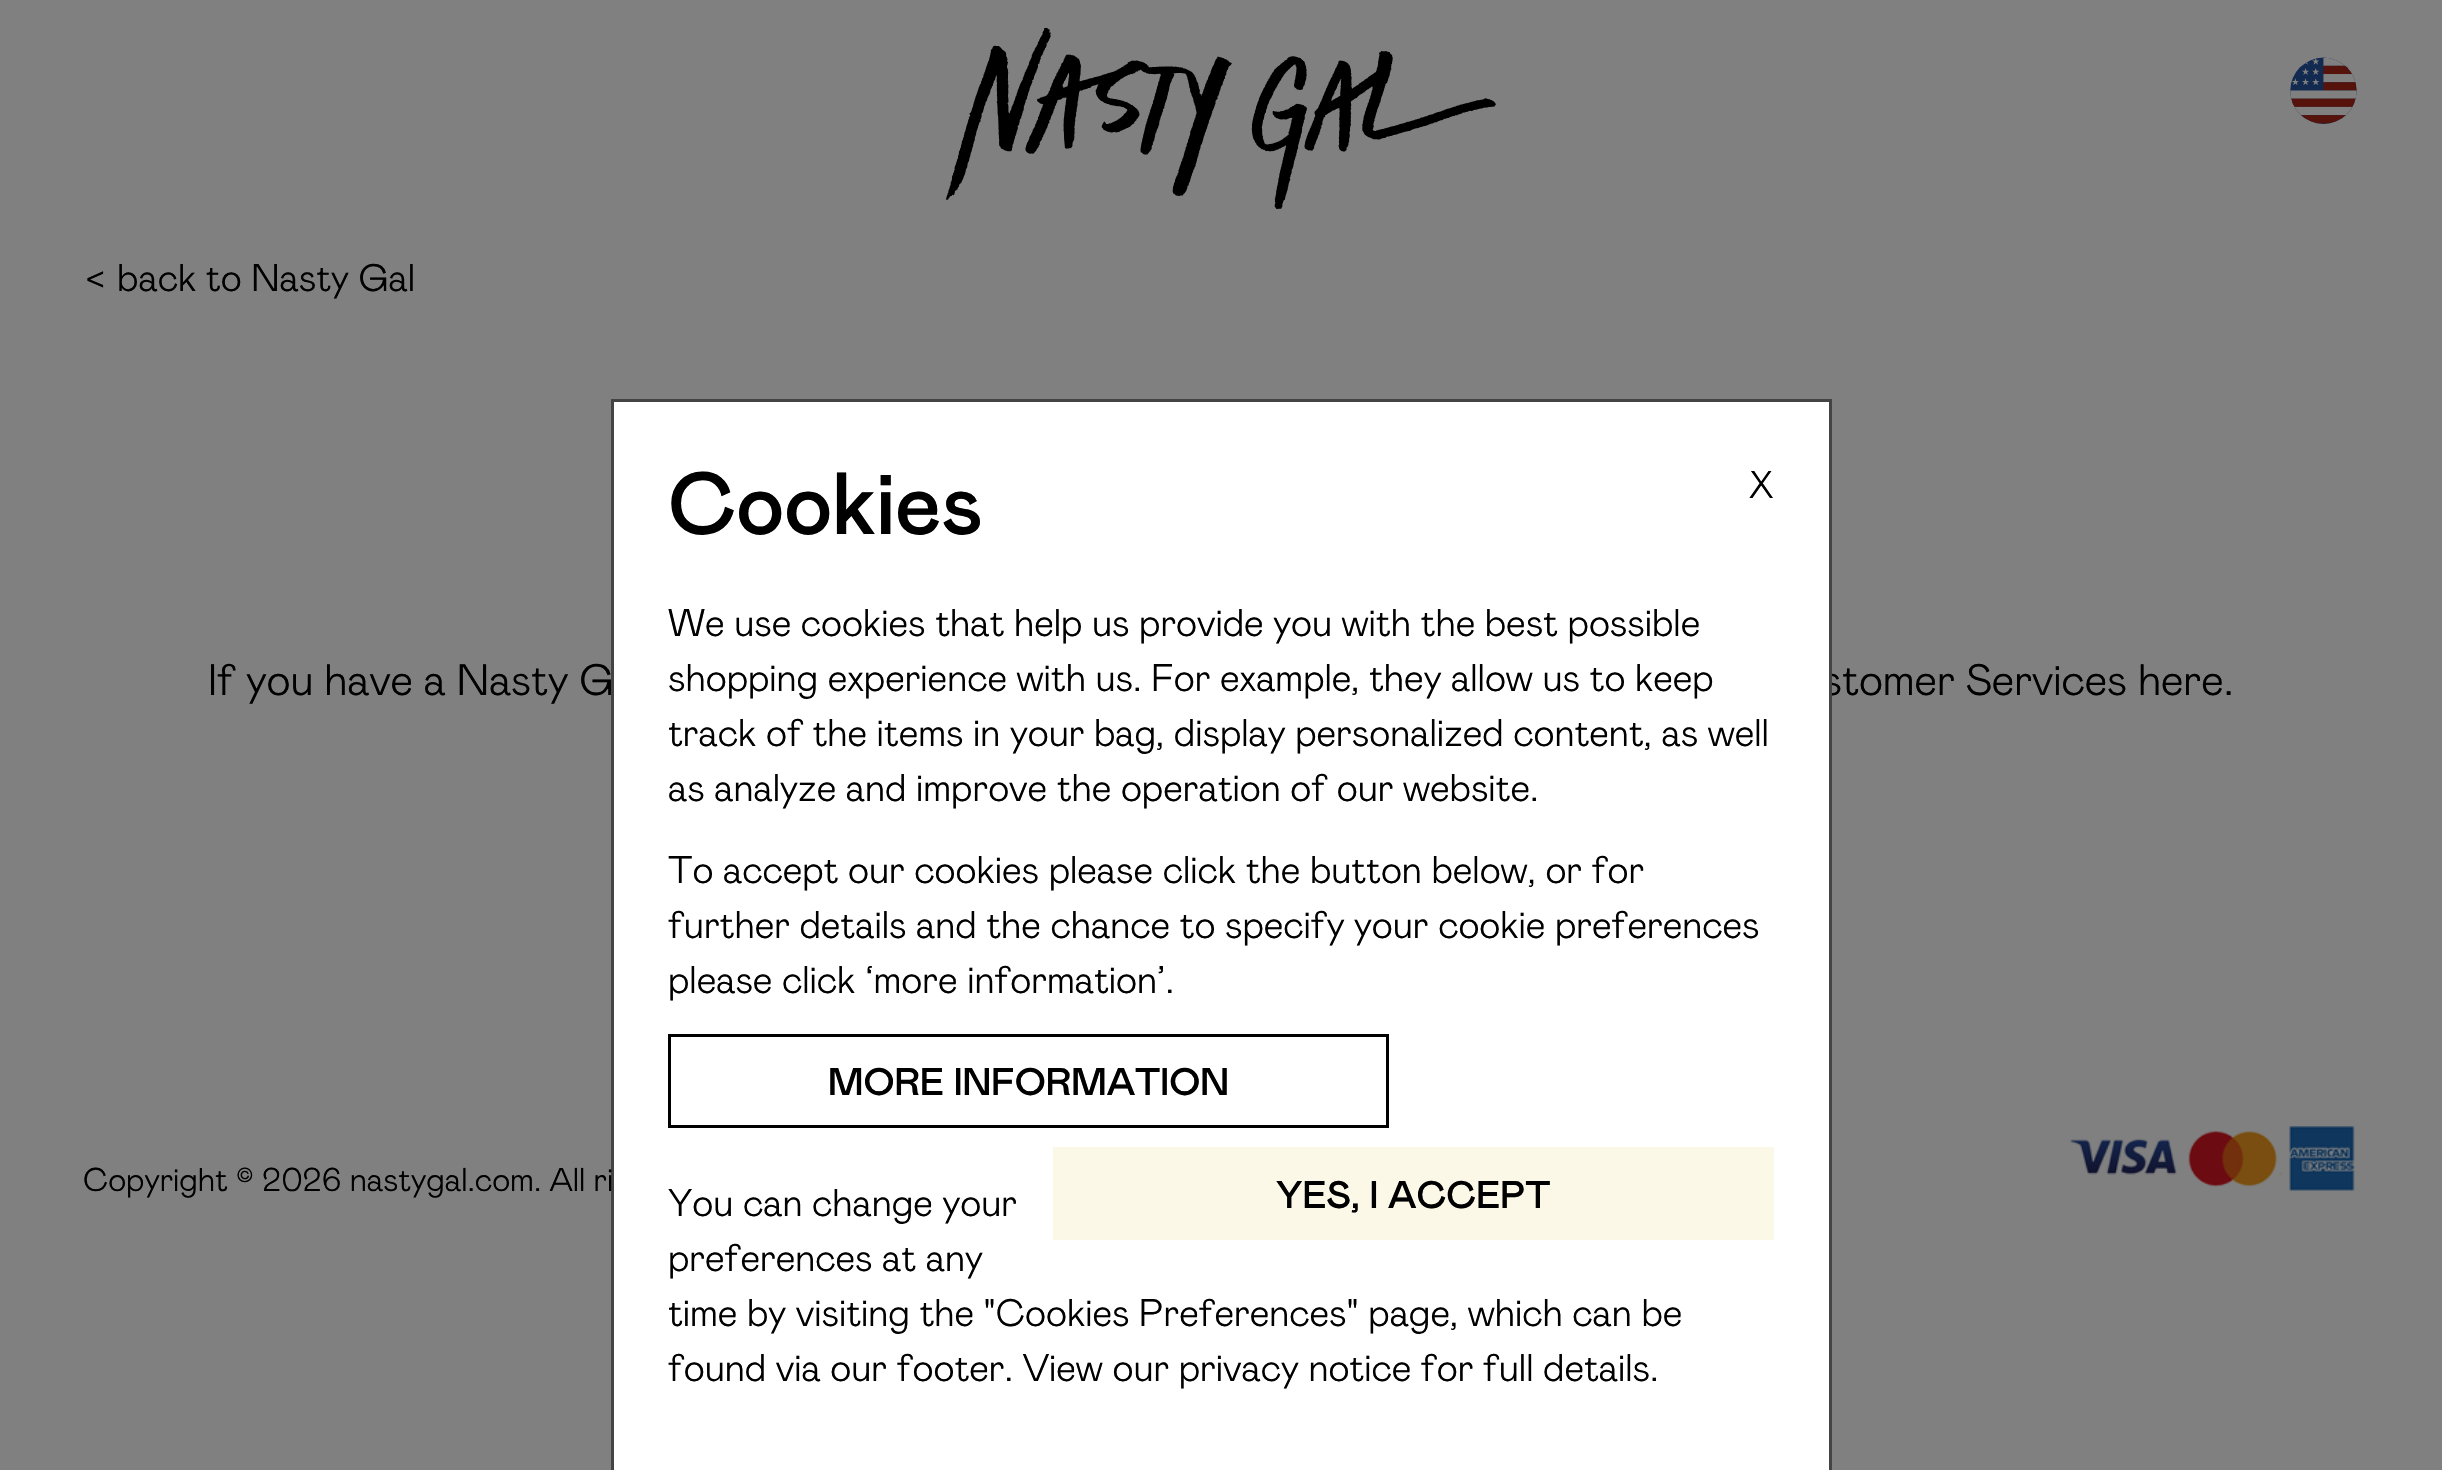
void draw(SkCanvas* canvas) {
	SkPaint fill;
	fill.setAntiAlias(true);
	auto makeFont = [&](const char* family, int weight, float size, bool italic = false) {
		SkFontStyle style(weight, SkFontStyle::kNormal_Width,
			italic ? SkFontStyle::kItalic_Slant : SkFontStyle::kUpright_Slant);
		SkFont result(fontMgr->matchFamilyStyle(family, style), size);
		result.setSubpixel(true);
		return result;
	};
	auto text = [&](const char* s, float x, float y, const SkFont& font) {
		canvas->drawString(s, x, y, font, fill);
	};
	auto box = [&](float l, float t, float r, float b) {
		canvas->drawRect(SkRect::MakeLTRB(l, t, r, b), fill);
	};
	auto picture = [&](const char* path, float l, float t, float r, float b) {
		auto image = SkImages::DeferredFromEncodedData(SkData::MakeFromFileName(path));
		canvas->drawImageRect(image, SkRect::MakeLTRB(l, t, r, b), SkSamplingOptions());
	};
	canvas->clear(0xFF808080);
	picture("image0.png", 946, 28, 1496, 209);
	picture("image1.png", 2290, 57, 2357, 124);
	picture("image2.png", 2070, 1126, 2355, 1191);
	auto font1 = makeFont("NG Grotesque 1", 400, 38.5f);
	fill.setColor(0xFF000000);
	text("< back to Nasty Gal", 83, 291, font1);
	auto font2 = makeFont("NG Grotesque 1", 400, 44);
	text("If you have a Nasty G", 208, 695, font2);
	text("stomer Services here.", 1822, 695, font2);
	fill.setColor(0xFFFFFFFF);
	canvas->drawRect(SkRect::MakeLTRB(612.5f, 400.5f, 1830.5f, 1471.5f), fill);
	fill.setStyle(SkPaint::kStroke_Style);
	fill.setStrokeWidth(3);
	fill.setColor(0xFF444444);
	canvas->drawRect(SkRect::MakeLTRB(612.5f, 400.5f, 1830.5f, 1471.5f), fill);
	fill.setStyle(SkPaint::kFill_Style);
	fill.setColor(0xFFFCF8E7);
	box(1053, 1147, 1774, 1240);
	auto font3 = makeFont("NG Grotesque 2", 400, 38.5f);
	fill.setColor(0xFF000000);
	text("YES, I ACCEPT", 1276, 1208, font3);
	fill.setStyle(SkPaint::kStroke_Style);
	canvas->drawRect(SkRect::MakeLTRB(669.5f, 1035.5f, 1387.5f, 1126.5f), fill);
	fill.setStyle(SkPaint::kFill_Style);
	text("MORE INFORMATION", 828, 1095, font3);
	text("found via our footer. View our privacy notice for full details.", 668, 1381, font1);
	text("time by visiting the \"Cookies Preferences\" page, which can be", 668, 1326, font1);
	text("preferences at any", 668, 1271, font1);
	text("You can change your", 668, 1216, font1);
	text("please click ‘more information’.", 668, 993, font1);
	text("further details and the chance to specify your cookie preferences", 668, 938, font1);
	text("To accept our cookies please click the button below, or for", 668, 883, font1);
	text("as analyze and improve the operation of our website.", 668, 801, font1);
	text("track of the items in your bag, display personalized content, as well", 668, 746, font1);
	text("shopping experience with us. For example, they allow us to keep", 668, 691, font1);
	text("We use cookies that help us provide you with the best possible", 668, 636, font1);
	auto font4 = makeFont("NG Grotesque 2", 400, 88);
	text("Cookies", 668, 534, font4);
	text("X", 1749, 498, font1);
	auto font5 = makeFont("NG Grotesque 1", 400, 33);
	text("Copyright © 2026 nastygal.com. All ri", 83, 1191, font5);
}
